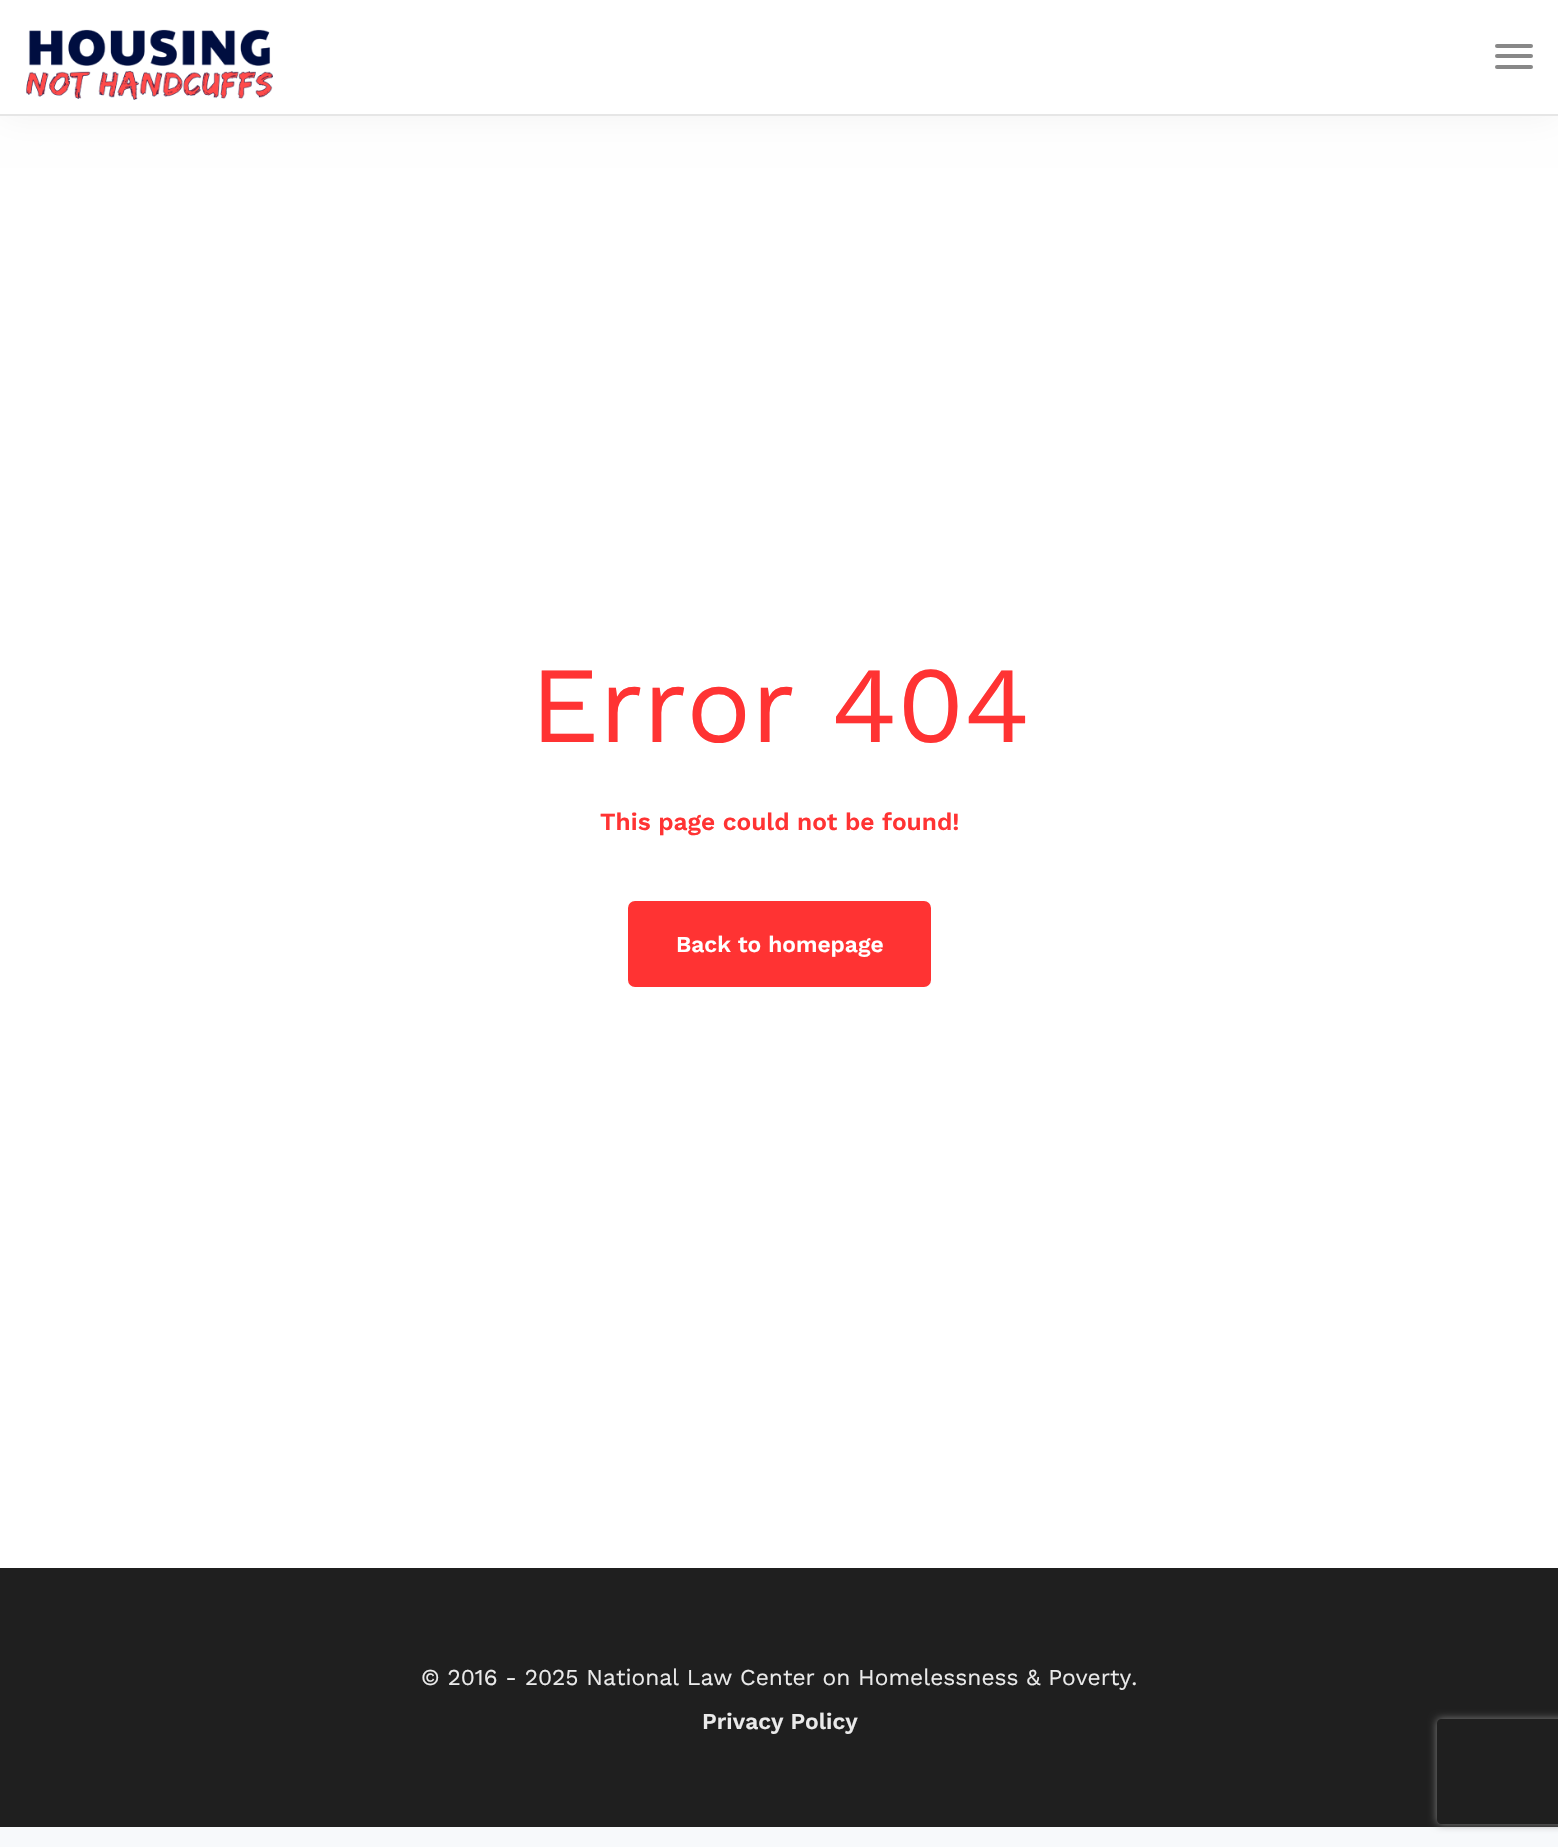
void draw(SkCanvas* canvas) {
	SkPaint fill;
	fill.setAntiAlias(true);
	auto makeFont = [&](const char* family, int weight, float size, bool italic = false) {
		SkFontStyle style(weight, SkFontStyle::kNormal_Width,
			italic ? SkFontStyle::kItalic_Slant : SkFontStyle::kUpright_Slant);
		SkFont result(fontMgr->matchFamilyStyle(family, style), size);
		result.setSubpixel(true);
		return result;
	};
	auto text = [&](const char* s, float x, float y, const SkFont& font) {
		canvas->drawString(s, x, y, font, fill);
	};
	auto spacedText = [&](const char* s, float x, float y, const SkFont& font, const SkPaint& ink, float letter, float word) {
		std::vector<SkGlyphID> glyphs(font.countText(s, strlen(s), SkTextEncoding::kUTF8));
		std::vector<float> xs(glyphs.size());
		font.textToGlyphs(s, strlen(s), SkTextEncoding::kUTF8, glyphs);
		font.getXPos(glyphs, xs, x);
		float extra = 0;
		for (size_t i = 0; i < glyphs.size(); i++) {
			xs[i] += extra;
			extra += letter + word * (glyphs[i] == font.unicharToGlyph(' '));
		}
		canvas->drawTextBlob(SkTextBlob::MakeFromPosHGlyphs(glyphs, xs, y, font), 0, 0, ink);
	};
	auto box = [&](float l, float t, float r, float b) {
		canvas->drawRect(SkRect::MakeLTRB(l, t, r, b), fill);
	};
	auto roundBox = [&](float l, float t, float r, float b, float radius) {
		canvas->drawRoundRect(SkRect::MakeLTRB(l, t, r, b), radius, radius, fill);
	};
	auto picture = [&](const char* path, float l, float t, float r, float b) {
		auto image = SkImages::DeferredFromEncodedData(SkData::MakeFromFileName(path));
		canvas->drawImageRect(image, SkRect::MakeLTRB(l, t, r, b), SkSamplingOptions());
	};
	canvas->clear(0xFFF7F9FB);
	fill.setColor(0xFFFFFFFF);
	box(0, 116, 1558, 1568);
	fill.setColor(0x0D000000);
	fill.setMaskFilter(SkMaskFilter::MakeBlur(kNormal_SkBlurStyle, 17.5f));
	canvas->drawRect(SkRect::MakeLTRB(0, 0, 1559, 116), fill);
	fill.setMaskFilter(nullptr);
	fill.setColor(0xFFFFFFFF);
	box(0, 0, 1558, 114);
	fill.setColor(0xFFE6E6E6);
	box(0, 114, 1558, 116);
	picture("image0.png", 26, 29, 273, 100);
	fill.setColor(0xFF888888);
	roundBox(1495, 44, 1533, 48, 2);
	roundBox(1495, 54, 1533, 58, 2);
	roundBox(1495, 65, 1533, 69, 2);
	fill.setColor(0xFFFF3333);
	canvas->drawRoundRect(SkRect::MakeLTRB(630, 903, 929, 985), 5, 5, fill);
	fill.setStyle(SkPaint::kStroke_Style);
	fill.setStrokeWidth(4);
	canvas->drawRoundRect(SkRect::MakeLTRB(630, 903, 929, 985), 5, 5, fill);
	fill.setStyle(SkPaint::kFill_Style);
	fill.setColor(0xFF1F1F1F);
	box(0, 1568, 1558, 1827);
	canvas->save();
	canvas->clipPath(SkPathBuilder(SkPathFillType::kEvenOdd).moveTo(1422, 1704).lineTo(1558, 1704).lineTo(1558, 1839).lineTo(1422, 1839).close().moveTo(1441, 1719).lineTo(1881, 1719).cubicTo(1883, 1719, 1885, 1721, 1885, 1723).lineTo(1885, 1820).cubicTo(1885, 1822, 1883, 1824, 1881, 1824).lineTo(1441, 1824).cubicTo(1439, 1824, 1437, 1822, 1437, 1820).lineTo(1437, 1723).cubicTo(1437, 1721, 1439, 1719, 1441, 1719).close().detach(), true);
	fill.setColor(0xFF808080);
	fill.setMaskFilter(SkMaskFilter::MakeBlur(kNormal_SkBlurStyle, 4.5f));
	canvas->drawRoundRect(SkRect::MakeLTRB(1437, 1719, 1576, 1824), 4, 4, fill);
	fill.setMaskFilter(nullptr);
	canvas->restore();
	auto font1 = makeFont("Work Sans", 400, 108.5f);
	fill.setColor(0xFFFF3333);
	spacedText("Error 404", 530, 742, font1, fill, -0.5f, 0);
	auto font2 = makeFont("Work Sans", 600, 24.5f);
	text("This page could not be found!", 600, 830, font2);
	auto font3 = makeFont("Work Sans", 600, 22.75f);
	fill.setColor(0xFFFFFFFF);
	text("Back to homepage", 676, 952, font3);
	auto font4 = makeFont("Work Sans", 400, 22.75f);
	fill.setColor(0xFFEAEAEA);
	text("© 2016 - 2025 National Law Center on Homelessness & Poverty.", 421, 1685, font4);
	text("Privacy Policy", 702, 1729, font3);
}
